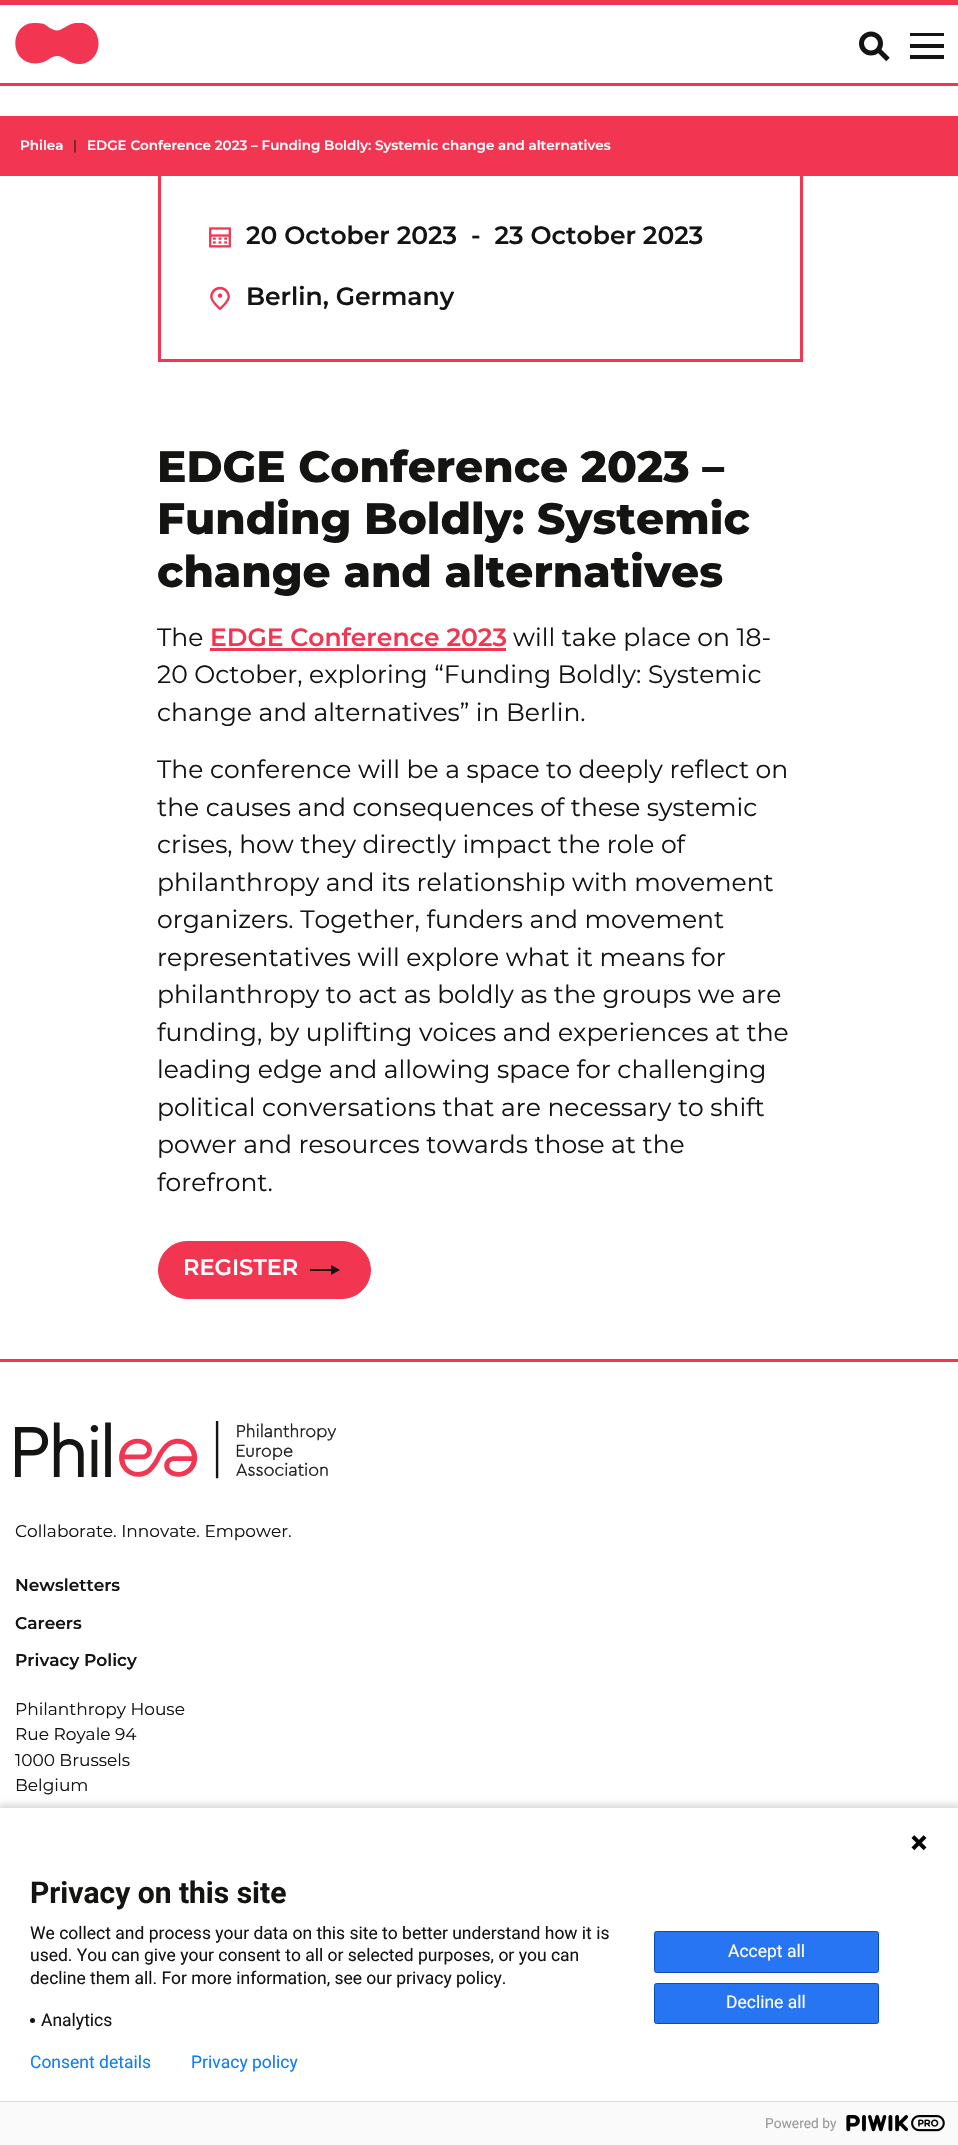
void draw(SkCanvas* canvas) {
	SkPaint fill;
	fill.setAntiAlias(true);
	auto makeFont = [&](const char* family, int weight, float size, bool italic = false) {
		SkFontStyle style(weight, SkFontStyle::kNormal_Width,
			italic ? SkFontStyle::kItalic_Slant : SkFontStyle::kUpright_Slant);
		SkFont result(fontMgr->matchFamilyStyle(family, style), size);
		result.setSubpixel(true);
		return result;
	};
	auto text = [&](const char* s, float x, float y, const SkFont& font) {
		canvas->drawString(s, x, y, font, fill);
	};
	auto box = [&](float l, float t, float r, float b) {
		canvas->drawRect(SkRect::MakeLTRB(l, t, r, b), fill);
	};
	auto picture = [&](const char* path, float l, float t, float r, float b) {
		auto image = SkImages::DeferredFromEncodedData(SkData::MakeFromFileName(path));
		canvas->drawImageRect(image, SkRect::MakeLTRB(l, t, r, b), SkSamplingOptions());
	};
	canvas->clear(0xFFFFFFFF);
	fill.setColor(0xFFF23652);
	box(0, 0, 958, 5);
	box(0, 83, 958, 86);
	canvas->save();
	canvas->clipRect(SkRect::MakeLTRB(15, 23, 100, 65));
	canvas->drawPath(SkPathBuilder().moveTo(35, 23).cubicTo(38, 23, 41, 23, 44, 24).cubicTo(49, 27, 54, 32, 60, 30).lineTo(69, 25).cubicTo(73, 23, 79, 22, 83, 23).cubicTo(105, 29, 103, 61, 81, 64).cubicTo(69, 65, 65, 56, 57, 56).cubicTo(53, 56, 49, 59, 46, 61).cubicTo(42, 63, 36, 64, 31, 63).cubicTo(8, 59, 11, 22, 35, 23).close().detach(), fill);
	canvas->restore();
	fill.setStyle(SkPaint::kStroke_Style);
	fill.setStrokeWidth(5);
	fill.setColor(0xFF141413);
	canvas->drawCircle(871, 43.5f, 9.5f, fill);
	canvas->drawPath(SkPathBuilder().moveTo(878, 49.5f).lineTo(888, 59.5f).detach(), fill);
	fill.setStyle(SkPaint::kFill_Style);
	box(910, 33, 944, 36);
	box(910, 44, 944, 48);
	box(910, 55, 944, 59);
	fill.setColor(0xFFF23652);
	box(0, 116, 958, 176);
	box(800, 176, 803, 361);
	box(158, 359, 803, 362);
	box(158, 176, 161, 361);
	picture("image0.png", 209, 227, 231, 248);
	picture("image1.png", 210, 286, 230, 311);
	box(210, 648, 506, 651);
	canvas->drawRoundRect(SkRect::MakeLTRB(158.5f, 1241.5f, 370.5f, 1298.5f), 28.5f, 28.5f, fill);
	fill.setStyle(SkPaint::kStroke_Style);
	fill.setStrokeWidth(1);
	canvas->drawRoundRect(SkRect::MakeLTRB(158.5f, 1241.5f, 370.5f, 1298.5f), 28.5f, 28.5f, fill);
	fill.setStyle(SkPaint::kFill_Style);
	fill.setColor(0xFF141413);
	canvas->drawPath(SkPathBuilder().moveTo(340, 1270).lineTo(331, 1265).lineTo(331, 1269).lineTo(310, 1269).lineTo(310, 1271).lineTo(331, 1271).lineTo(331, 1275).close().detach(), fill);
	fill.setColor(0xFFF23652);
	box(0, 1359, 958, 1362);
	picture("image2.png", 15, 1421, 336, 1479);
	fill.setColor(0x24000000);
	fill.setMaskFilter(SkMaskFilter::MakeBlur(kNormal_SkBlurStyle, 3));
	canvas->drawRect(SkRect::MakeLTRB(-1, 1804, 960, 2144), fill);
	fill.setMaskFilter(nullptr);
	fill.setColor(0xFFFFFFFF);
	box(0, 1808, 958, 2101);
	picture("image3.png", 911, 1835, 927, 1851);
	fill.setColor(0xFF131313);
	canvas->drawCircle(32.5f, 2020.5f, 2.5f, fill);
	fill.setColor(0xFF2775F2);
	canvas->drawRoundRect(SkRect::MakeLTRB(654.5f, 1931.5f, 878.5f, 1972.5f), 2, 2, fill);
	fill.setStyle(SkPaint::kStroke_Style);
	fill.setColor(0xFF0B4BB3);
	canvas->drawRoundRect(SkRect::MakeLTRB(654.5f, 1931.5f, 878.5f, 1972.5f), 2, 2, fill);
	fill.setStyle(SkPaint::kFill_Style);
	fill.setColor(0xFF2775F2);
	canvas->drawRoundRect(SkRect::MakeLTRB(654.5f, 1983.5f, 878.5f, 2023.5f), 2, 2, fill);
	fill.setStyle(SkPaint::kStroke_Style);
	fill.setColor(0xFF0B4BB3);
	canvas->drawRoundRect(SkRect::MakeLTRB(654.5f, 1983.5f, 878.5f, 2023.5f), 2, 2, fill);
	fill.setStyle(SkPaint::kFill_Style);
	fill.setColor(0xFFFAFAFA);
	box(0, 2102, 958, 2145);
	fill.setColor(0xFFDDDDDD);
	box(0, 2101, 958, 2102);
	picture("image4.png", 846, 2115, 945, 2132);
	auto font1 = makeFont("Montserrat", 600, 13.5f);
	fill.setColor(0xFFFFFFFF);
	text("Philea", 20, 150, font1);
	auto font2 = makeFont("Montserrat", 400, 13.5f);
	fill.setColor(0xFF141413);
	text("|", 73, 150, font2);
	fill.setColor(0xFFFFFFFF);
	text("EDGE Conference 2023 – Funding Boldly: Systemic change and alternatives", 87, 150, font1);
	auto font3 = makeFont("Montserrat", 600, 25);
	fill.setColor(0xFF141413);
	text("20 October 2023", 246, 244, font3);
	text("-  23 October 2023", 471, 244, font3);
	text("Berlin, Germany", 246, 305, font3);
	auto font4 = makeFont("Montserrat", 800, 43.75f);
	text("EDGE Conference 2023 –", 157, 482, font4);
	text("Funding Boldly: Systemic", 157, 534, font4);
	text("change and alternatives", 157, 587, font4);
	auto font5 = makeFont("Montserrat", 400, 25);
	text("The", 157, 646, font5);
	fill.setColor(0xFFF23652);
	text("EDGE Conference 2023", 210, 646, font3);
	fill.setColor(0xFF141413);
	text("will take place on 18-", 513, 646, font5);
	text("20 October, exploring “Funding Boldly: Systemic", 157, 683, font5);
	text("change and alternatives” in Berlin.", 157, 721, font5);
	text("The conference will be a space to deeply reflect on", 157, 778, font5);
	text("the causes and consequences of these systemic", 157, 816, font5);
	text("crises, how they directly impact the role of", 157, 853, font5);
	text("philanthropy and its relationship with movement", 157, 891, font5);
	text("organizers. Together, funders and movement", 157, 928, font5);
	text("representatives will explore what it means for", 157, 966, font5);
	text("philanthropy to act as boldly as the groups we are", 157, 1003, font5);
	text("funding, by uplifting voices and experiences at the", 157, 1041, font5);
	text("leading edge and allowing space for challenging", 157, 1078, font5);
	text("political conversations that are necessary to shift", 157, 1116, font5);
	text("power and resources towards those at the", 157, 1153, font5);
	text("forefront.", 157, 1191, font5);
	auto font6 = makeFont("Montserrat", 600, 22.5f);
	fill.setColor(0xFFFFFFFF);
	text("REGISTER", 183, 1275, font6);
	auto font7 = makeFont("Montserrat", 400, 17);
	fill.setColor(0xFF141413);
	text("Collaborate. Innovate. Empower.", 15, 1537, font7);
	auto font8 = makeFont("Montserrat", 600, 17);
	text("Newsletters", 15, 1591, font8);
	text("Careers", 15, 1629, font8);
	text("Privacy Policy", 15, 1666, font8);
	text("Philanthropy House", 15, 1715, font7);
	text("Rue Royale 94", 15, 1740, font7);
	text("1000 Brussels", 15, 1766, font7);
	text("Belgium", 15, 1791, font7);
	auto font9 = makeFont("Roboto", 700, 30);
	text("Privacy on this site", 30, 1903, font9);
	auto font10 = makeFont("Roboto", 400, 17.5f);
	text("We collect and process your data on this site to better understand how it is", 30, 1939, font10);
	text("used. You can give your consent to all or selected purposes, or you can", 30, 1961, font10);
	text("decline them all. For more information, see our privacy policy.", 30, 1984, font10);
	text("Analytics", 41, 2026, font10);
	fill.setColor(0xFFFFFFFF);
	text("Accept all", 728, 1957, font10);
	text("Decline all", 726, 2008, font10);
	fill.setColor(0xFF107EF1);
	text("Consent details", 30, 2068, font10);
	text("Privacy policy", 191, 2068, font10);
	auto font11 = makeFont("Roboto", 400, 13.75f);
	fill.setColor(0xFF999999);
	text("Powered by", 765, 2128, font11);
}
